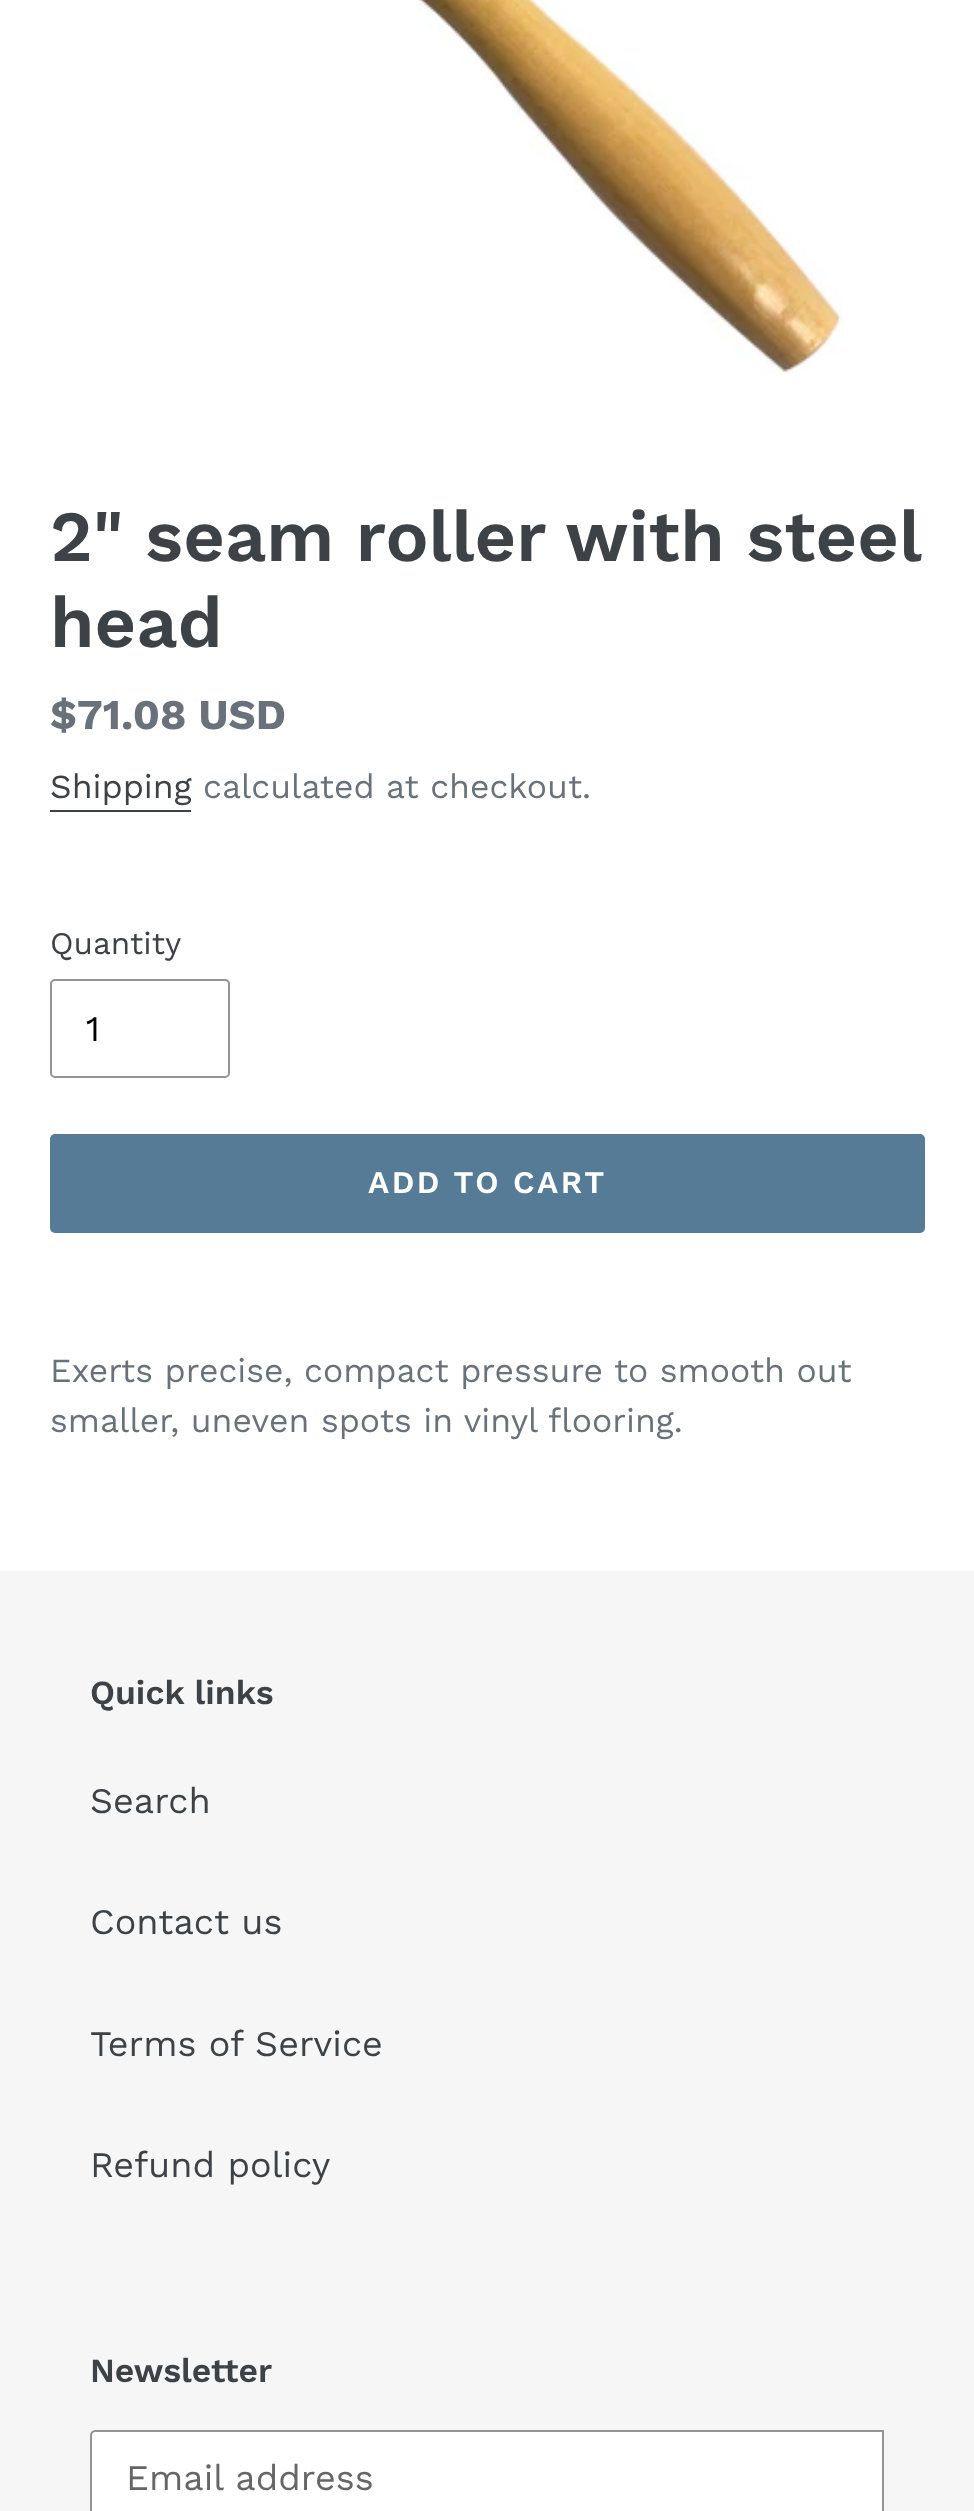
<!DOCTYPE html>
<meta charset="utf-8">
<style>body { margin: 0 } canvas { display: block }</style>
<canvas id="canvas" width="974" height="2511"></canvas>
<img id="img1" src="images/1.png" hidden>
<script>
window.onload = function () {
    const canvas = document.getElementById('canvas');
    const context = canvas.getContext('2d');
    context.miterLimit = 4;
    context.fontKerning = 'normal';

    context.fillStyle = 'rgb(255, 255, 255)';
    context.fillRect(0, 0, 974, 2511);
    context.drawImage(document.getElementById('img1'), 418, 0, 425, 374);
    context.fillStyle = 'rgb(61, 66, 70)';
    context.fillRect(50, 810, 141, 2);
    context.beginPath();
    context.roundRect(51, 980, 178, 97, 4);
    context.strokeStyle = 'rgb(148, 148, 148)';
    context.lineWidth = 2;
    context.stroke();
    context.fillStyle = 'rgb(85, 123, 151)';
    context.beginPath();
    context.roundRect(50, 1134, 875, 99, 5);
    context.fill();
    context.fillStyle = 'rgb(246, 246, 246)';
    context.fillRect(0, 1571, 974, 940);
    context.fillStyle = 'rgb(255, 255, 255)';
    context.beginPath();
    context.moveTo(95, 2431);
    context.lineTo(883, 2431);
    context.lineTo(883, 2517);
    context.lineTo(95, 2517);
    context.bezierCurveTo(93, 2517, 91, 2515, 91, 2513);
    context.lineTo(91, 2435);
    context.bezierCurveTo(91, 2433, 93, 2431, 95, 2431);
    context.closePath();
    context.fill();
    context.stroke();
    context.wordSpacing = '-0.5px';
    context.font = '600 72px Work Sans';
    context.fillStyle = 'rgb(61, 66, 70)';
    context.fillText('2" seam roller with steel', 50, 561);
    context.wordSpacing = '0px';
    context.fillText('head', 50, 647);
    context.font = 'bold 42.25px Work Sans';
    context.fillStyle = 'rgb(105, 114, 123)';
    context.fillText('$71.08 USD', 50, 729);
    context.font = '33.75px Work Sans';
    context.fillStyle = 'rgb(61, 66, 70)';
    context.fillText('Shipping', 50, 798);
    context.fillStyle = 'rgb(105, 114, 123)';
    context.fillText('calculated at checkout.', 203, 798);
    context.font = '31.5px Work Sans';
    context.fillStyle = 'rgb(61, 66, 70)';
    context.fillText('Quantity', 50, 954);
    context.font = '36px Work Sans';
    context.fillStyle = 'rgb(0, 0, 0)';
    context.fillText('1', 86, 1041);
    context.letterSpacing = '2.5px';
    context.font = '600 31.5px Work Sans';
    context.fillStyle = 'rgb(255, 255, 255)';
    context.fillText('ADD TO CART', 368, 1193);
    context.letterSpacing = '0px';
    context.font = '33.75px Work Sans';
    context.fillStyle = 'rgb(105, 114, 123)';
    context.fillText('Exerts precise, compact pressure to smooth out', 50, 1382);
    context.fillText('smaller, uneven spots in vinyl flooring.', 50, 1432);
    context.font = '600 33.75px Work Sans';
    context.fillStyle = 'rgb(61, 66, 70)';
    context.fillText('Quick links', 90, 1704);
    context.font = '36px Work Sans';
    context.fillText('Search', 90, 1813);
    context.fillText('Contact us', 90, 1934);
    context.fillText('Terms of Service', 90, 2056);
    context.fillText('Refund policy', 90, 2177);
    context.font = '600 33.75px Work Sans';
    context.fillText('Newsletter', 90, 2382);
    context.font = '36px Work Sans';
    context.fillStyle = 'rgb(102, 102, 102)';
    context.fillText('Email address', 126, 2490);
};
</script>
